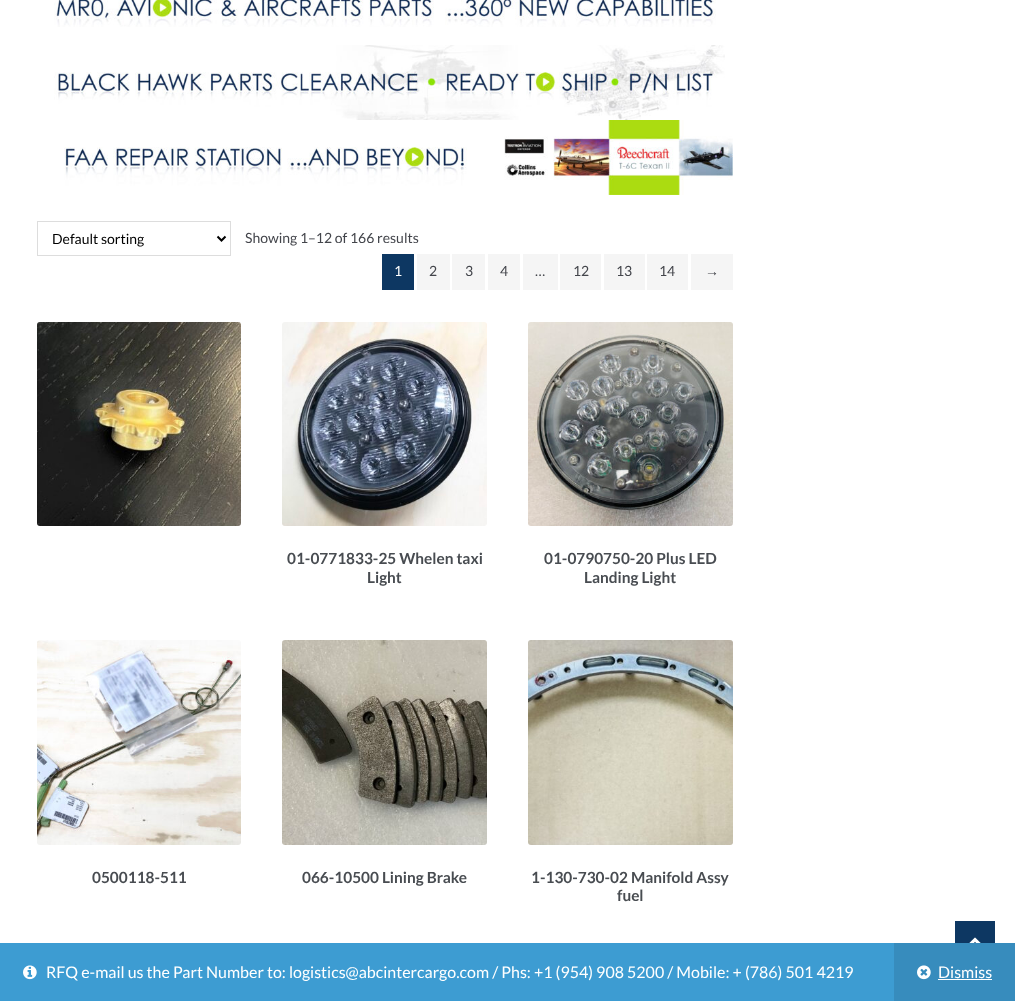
<!DOCTYPE html>
<meta charset="utf-8">
<style>body { margin: 0 } canvas { display: block }</style>
<canvas id="canvas" width="1015" height="1001"></canvas>
<img id="img1" src="images/1.png" hidden>
<img id="img2" src="images/2.png" hidden>
<img id="img3" src="images/3.png" hidden>
<img id="img4" src="images/4.png" hidden>
<img id="img5" src="images/5.png" hidden>
<img id="img6" src="images/6.png" hidden>
<img id="img7" src="images/7.png" hidden>
<img id="img8" src="images/8.png" hidden>
<img id="img9" src="images/9.png" hidden>
<img id="img10" src="images/10.png" hidden>
<img id="img11" src="images/11.png" hidden>
<img id="img12" src="images/12.png" hidden>
<script>
window.onload = function () {
    const canvas = document.getElementById('canvas');
    const context = canvas.getContext('2d');
    context.miterLimit = 4;
    context.fontKerning = 'normal';

    context.fillStyle = 'rgb(255, 255, 255)';
    context.fillRect(0, 0, 1015, 1001);
    context.drawImage(document.getElementById('img1'), 54, 0, 662, 27);
    context.drawImage(document.getElementById('img2'), 54, 45, 671, 75);
    context.drawImage(document.getElementById('img3'), 64, 120, 669, 75);
    context.strokeStyle = 'rgb(221, 221, 221)';
    context.strokeRect(37.5, 221.5, 193, 34);
    context.beginPath();
    context.moveTo(217.5, 236.5);
    context.lineTo(221.5, 240.5);
    context.lineTo(225.5, 236.5);
    context.strokeStyle = 'rgb(0, 0, 0)';
    context.lineWidth = 2;
    context.stroke();
    context.fillStyle = 'rgb(13, 55, 98)';
    context.fillRect(382, 254, 32, 36);
    context.fillStyle = 'rgb(245, 245, 245)';
    context.fillRect(417, 254, 33, 36);
    context.fillRect(452, 254, 33, 36);
    context.fillRect(488, 254, 32, 36);
    context.fillRect(523, 254, 35, 36);
    context.fillRect(560, 254, 41, 36);
    context.fillRect(604, 254, 41, 36);
    context.fillRect(647, 254, 41, 36);
    context.fillRect(691, 254, 42, 36);
    context.drawImage(document.getElementById('img4'), 37, 322, 204, 204);
    context.drawImage(document.getElementById('img5'), 282, 322, 205, 204);
    context.drawImage(document.getElementById('img6'), 528, 322, 205, 204);
    context.drawImage(document.getElementById('img7'), 37, 640, 204, 205);
    context.drawImage(document.getElementById('img8'), 282, 640, 205, 205);
    context.drawImage(document.getElementById('img9'), 528, 640, 205, 205);
    context.fillStyle = 'rgb(13, 55, 98)';
    context.fillRect(955, 921, 40, 22);
    context.drawImage(document.getElementById('img10'), 969, 937, 12, 6);
    context.fillStyle = 'rgb(61, 156, 210)';
    context.fillRect(0, 943, 894, 58);
    context.drawImage(document.getElementById('img11'), 23, 965, 14, 15);
    context.fillStyle = 'rgb(55, 140, 189)';
    context.fillRect(894, 943, 121, 58);
    context.drawImage(document.getElementById('img12'), 917, 965, 14, 15);
    context.fillStyle = 'rgb(255, 255, 255)';
    context.fillRect(938, 979, 54, 1);
    context.font = '14px Lato';
    context.fillStyle = 'rgb(0, 0, 0)';
    context.fillText('Default sorting', 52, 244);
    context.fillStyle = 'rgb(67, 69, 75)';
    context.fillText('Showing 1–12 of 166 results', 245, 243);
    context.fillStyle = 'rgb(255, 255, 255)';
    context.fillText('1', 394, 276);
    context.fillStyle = 'rgb(67, 69, 75)';
    context.fillText('2', 429, 276);
    context.fillText('3', 465, 276);
    context.fillText('4', 500, 276);
    context.fillText('…', 535, 276);
    context.fillText('12', 573, 276);
    context.fillText('13', 616, 276);
    context.fillText('14', 659, 276);
    context.font = '14px Liberation Sans';
    context.fillText('→', 705, 276);
    context.font = 'bold 15.4px Lato';
    context.fillStyle = 'rgb(72, 76, 81)';
    context.fillText('01-0771833-25 Whelen taxi', 287, 564);
    context.fillText('Light', 367, 583);
    context.fillText('01-0790750-20 Plus LED', 544, 564);
    context.fillText('Landing Light', 584, 583);
    context.fillText('0500118-511', 92, 883);
    context.fillText('066-10500 Lining Brake', 302, 883);
    context.fillText('1-130-730-02 Manifold Assy', 531, 883);
    context.fillText('fuel', 617, 901);
    context.font = '16px Lato';
    context.fillStyle = 'rgb(255, 255, 255)';
    context.fillText('RFQ e-mail us the Part Number to: logistics@abcintercargo.com / Phs: +1 (954) 908 5200 / Mobile: + (786) 501 4219', 46, 978);
    context.fillText('Dismiss', 938, 978);
};
</script>
